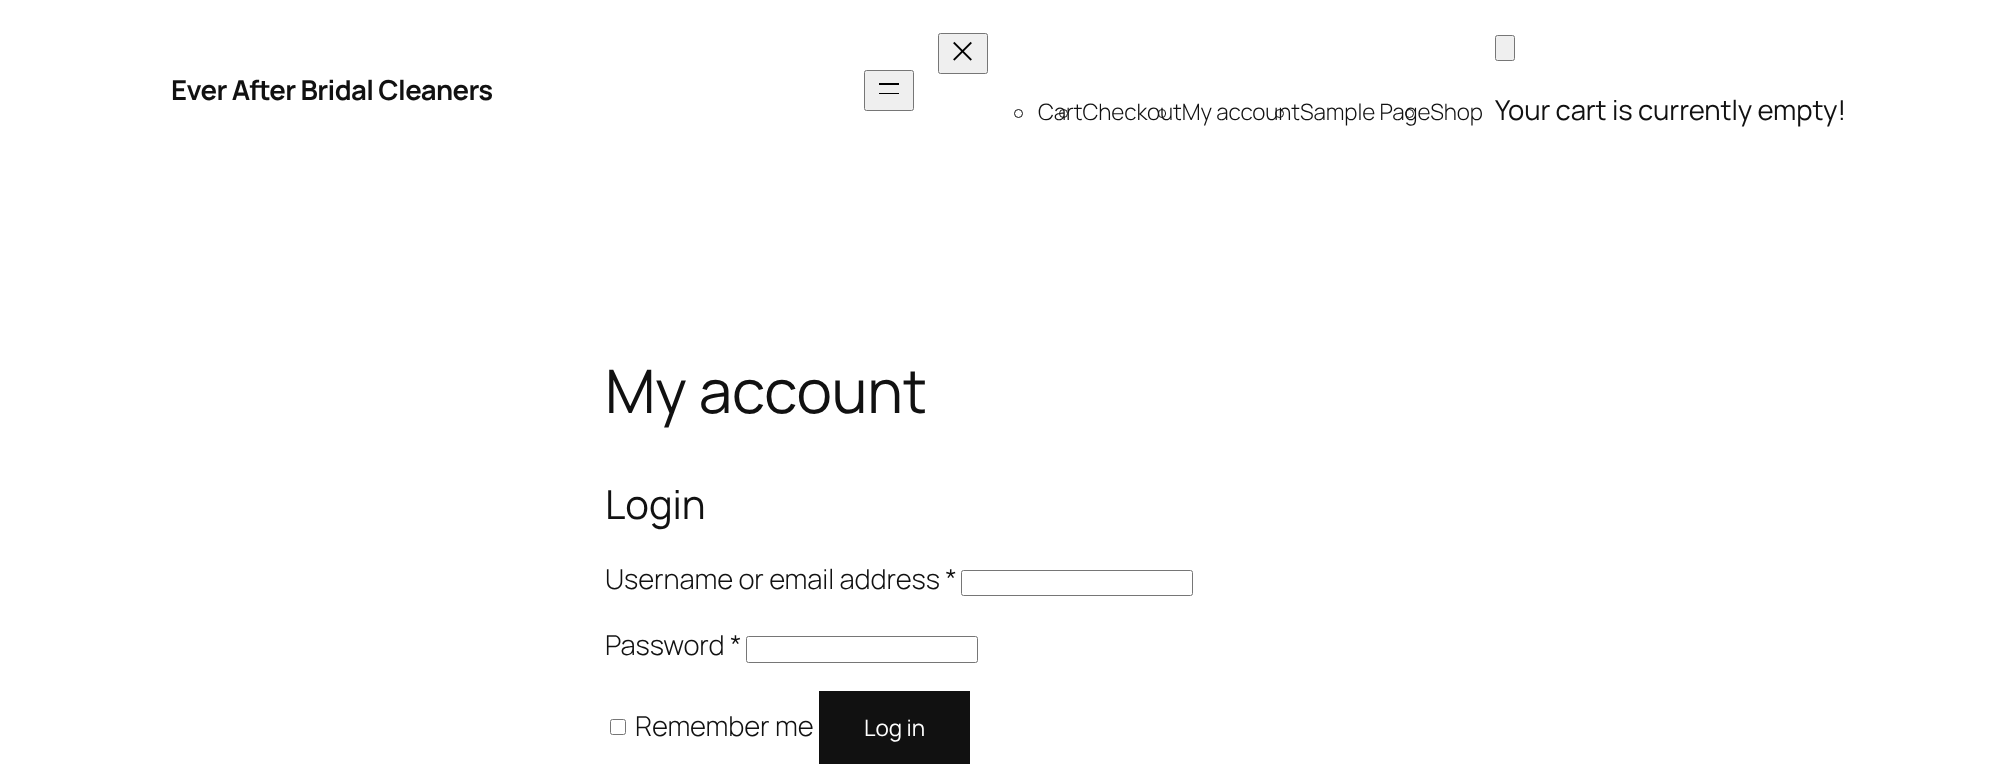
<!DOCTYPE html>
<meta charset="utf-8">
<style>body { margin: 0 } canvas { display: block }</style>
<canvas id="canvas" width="2016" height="772"></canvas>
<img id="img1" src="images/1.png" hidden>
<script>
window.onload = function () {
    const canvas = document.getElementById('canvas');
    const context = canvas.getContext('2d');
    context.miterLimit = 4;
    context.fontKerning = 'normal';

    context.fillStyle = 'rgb(255, 255, 255)';
    context.fillRect(0, 0, 2016, 772);
    context.fillStyle = 'rgb(239, 239, 239)';
    context.beginPath();
    context.roundRect(864.5, 70.5, 49, 40, 2);
    context.fill();
    context.strokeStyle = 'rgb(118, 118, 118)';
    context.stroke();
    context.fillStyle = 'rgb(0, 0, 0)';
    context.fillRect(879, 83, 20, 2);
    context.fillRect(879, 93, 20, 1);
    context.fillStyle = 'rgb(239, 239, 239)';
    context.beginPath();
    context.roundRect(938.5, 33.5, 49, 40, 2);
    context.fill();
    context.stroke();
    context.drawImage(document.getElementById('img1'), 953, 41, 19, 20);
    context.beginPath();
    context.arc(1018.5, 113.5, 4, 0, 2 * Math.PI);
    context.strokeStyle = 'rgb(17, 17, 17)';
    context.stroke();
    context.beginPath();
    context.arc(1063.5, 113.5, 4, 0, 2 * Math.PI);
    context.stroke();
    context.beginPath();
    context.roundRect(1158.5, 109.5, 7, 8, 3.5);
    context.stroke();
    context.beginPath();
    context.arc(1279.5, 113.5, 4, 0, 2 * Math.PI);
    context.stroke();
    context.beginPath();
    context.arc(1409.5, 113.5, 4, 0, 2 * Math.PI);
    context.stroke();
    context.beginPath();
    context.roundRect(1495.5, 35.5, 19, 25, 2);
    context.fill();
    context.strokeStyle = 'rgb(118, 118, 118)';
    context.stroke();
    context.beginPath();
    context.roundRect(961.5, 570.5, 231, 25, 2);
    context.stroke();
    context.beginPath();
    context.roundRect(746.5, 636.5, 231, 26, 2);
    context.stroke();
    context.beginPath();
    context.roundRect(610.5, 719.5, 15, 15, 2);
    context.stroke();
    context.fillStyle = 'rgb(17, 17, 17)';
    context.fillRect(819, 691, 151, 73);
    context.letterSpacing = '-0.6px';
    context.font = 'bold 27.5px Manrope';
    context.fillText('Ever After Bridal Cleaners', 171, 100);
    context.letterSpacing = '-0.1px';
    context.font = '300 22.5px Manrope';
    context.fillText('CartCheckoutMy accountSample PageShop', 1038, 120);
    context.font = '27.5px Manrope';
    context.fillText('Your cart is currently empty!', 1495, 120);
    context.font = '60px Manrope';
    context.fillText('My account', 605, 413);
    context.font = '40px Manrope';
    context.fillText('Login', 605, 519);
    context.font = '300 27.5px Manrope';
    context.fillText('Username or email address *', 605, 589);
    context.fillText('Password *', 605, 655);
    context.fillText('Remember me', 635, 736);
    context.letterSpacing = '0px';
    context.font = '22.5px Manrope';
    context.fillStyle = 'rgb(255, 255, 255)';
    context.fillText('Log in', 864, 736);
};
</script>
